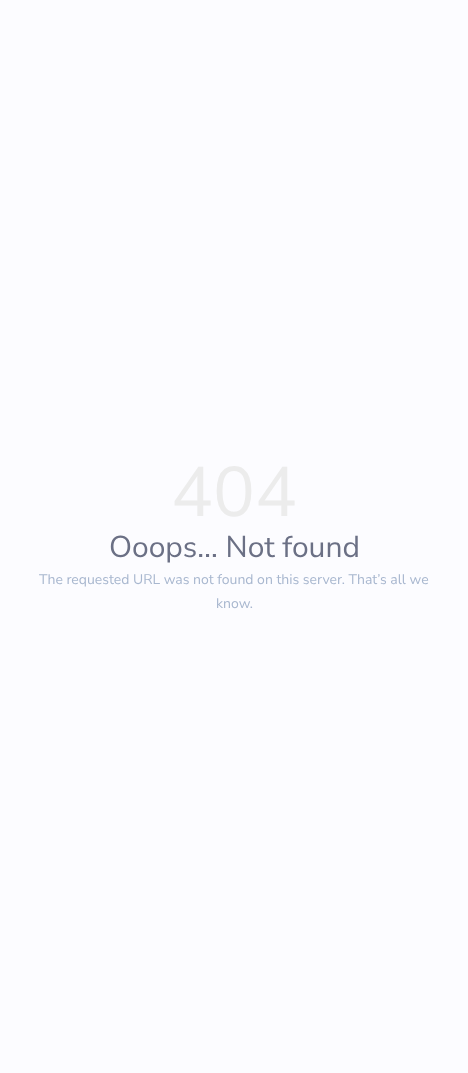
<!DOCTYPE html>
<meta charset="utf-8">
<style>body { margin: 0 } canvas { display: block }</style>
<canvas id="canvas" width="468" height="1073"></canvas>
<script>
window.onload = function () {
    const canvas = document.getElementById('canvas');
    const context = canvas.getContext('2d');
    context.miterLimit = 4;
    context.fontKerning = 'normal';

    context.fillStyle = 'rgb(252, 252, 255)';
    context.fillRect(0, 0, 468, 1073);
    context.font = '70px Nunito Sans';
    context.fillStyle = 'rgb(236, 236, 236)';
    context.fillText('404', 171, 516);
    context.font = '30px Nunito Sans';
    context.fillStyle = 'rgb(107, 112, 133)';
    context.fillText('Ooops… Not found', 109, 557);
    context.font = '14px Nunito Sans';
    context.fillStyle = 'rgb(168, 183, 207)';
    context.fillText('The requested URL was not found on this server. That’s all we', 39, 584);
    context.fillText('know.', 216, 608);
};
</script>
